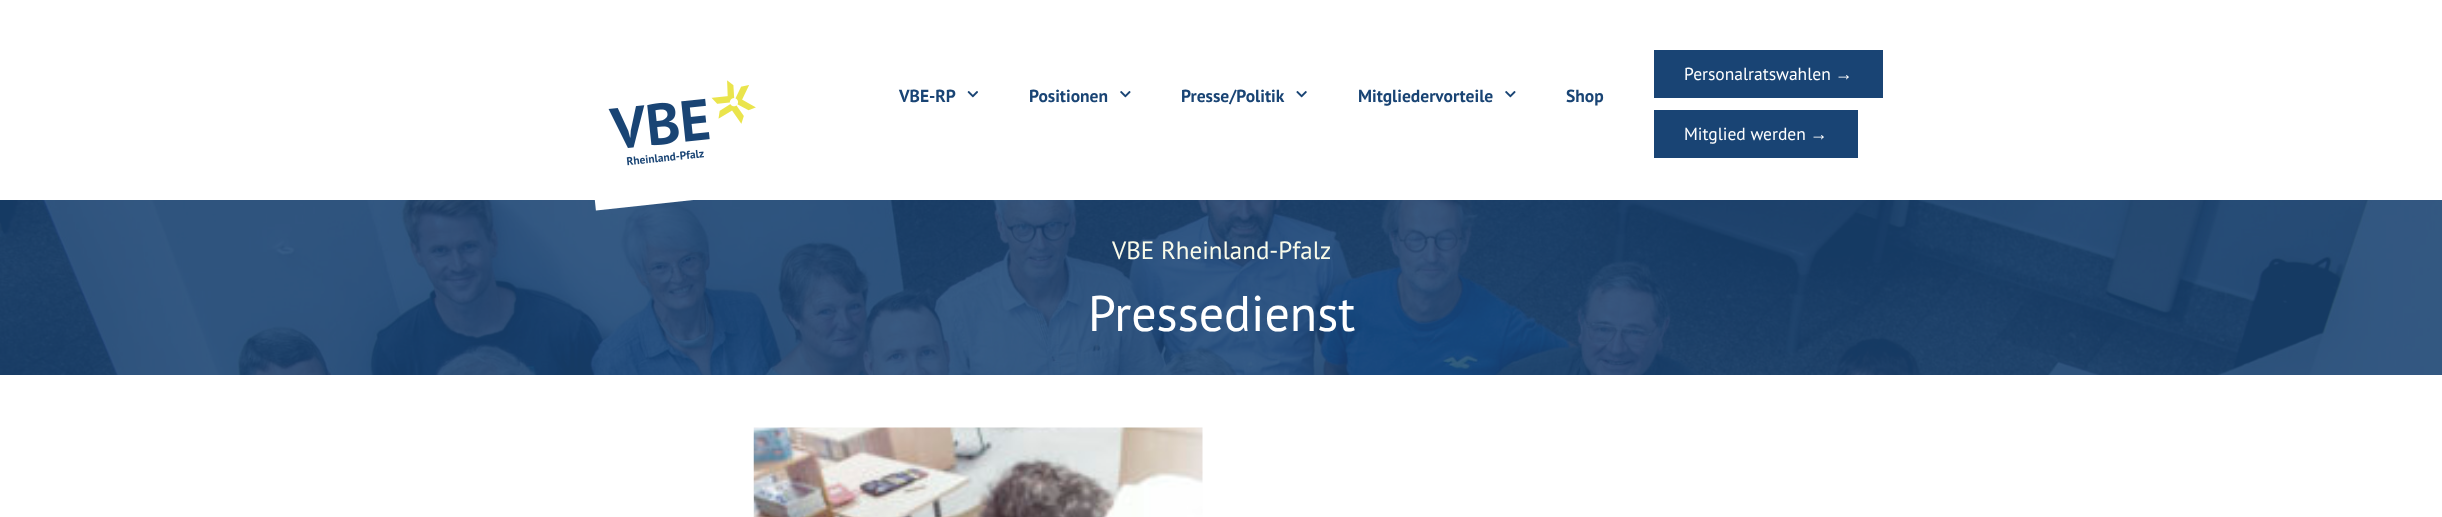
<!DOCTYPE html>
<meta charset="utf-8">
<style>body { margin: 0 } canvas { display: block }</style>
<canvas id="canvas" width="2442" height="517"></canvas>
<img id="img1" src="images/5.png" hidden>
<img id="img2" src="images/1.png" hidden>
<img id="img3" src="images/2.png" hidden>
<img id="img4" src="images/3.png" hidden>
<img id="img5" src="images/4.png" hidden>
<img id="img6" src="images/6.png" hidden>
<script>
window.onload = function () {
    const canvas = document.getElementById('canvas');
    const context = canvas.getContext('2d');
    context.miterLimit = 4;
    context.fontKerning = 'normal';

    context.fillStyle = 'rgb(255, 255, 255)';
    context.fillRect(0, 0, 2442, 517);
    context.drawImage(document.getElementById('img1'), 0, 200, 2442, 175);
    context.drawImage(document.getElementById('img2'), 594, 80, 162, 131);
    context.drawImage(document.getElementById('img3'), 967, 91, 11, 7);
    context.drawImage(document.getElementById('img4'), 1120, 91, 11, 7);
    context.drawImage(document.getElementById('img5'), 1296, 91, 11, 7);
    context.drawImage(document.getElementById('img4'), 1505, 91, 11, 7);
    context.fillStyle = 'rgb(25, 68, 116)';
    context.fillRect(1654, 50, 229, 48);
    context.fillRect(1654, 110, 204, 48);
    context.drawImage(document.getElementById('img6'), 753, 427, 450, 90);
    context.font = 'bold 17.5px PT Sans';
    context.fillText('VBE-RP', 899, 102);
    context.fillText('Positionen', 1029, 102);
    context.fillText('Presse/Politik', 1181, 102);
    context.fillText('Mitgliedervorteile', 1358, 102);
    context.fillText('Shop', 1566, 102);
    context.font = '17.5px PT Sans';
    context.fillStyle = 'rgb(255, 255, 255)';
    context.fillText('Personalratswahlen', 1684, 80);
    context.font = '17.5px Liberation Sans';
    context.fillText('→', 1835, 80);
    context.font = '17.5px PT Sans';
    context.fillText('Mitglied werden', 1684, 140);
    context.font = '17.5px Liberation Sans';
    context.fillText('→', 1810, 140);
    context.font = '25px PT Sans';
    context.fillStyle = 'rgb(249, 251, 234)';
    context.fillText('VBE Rheinland-Pfalz', 1112, 259);
    context.font = '50px PT Sans';
    context.fillStyle = 'rgb(255, 255, 255)';
    context.fillText('Pressedienst', 1088, 331);
};
</script>
